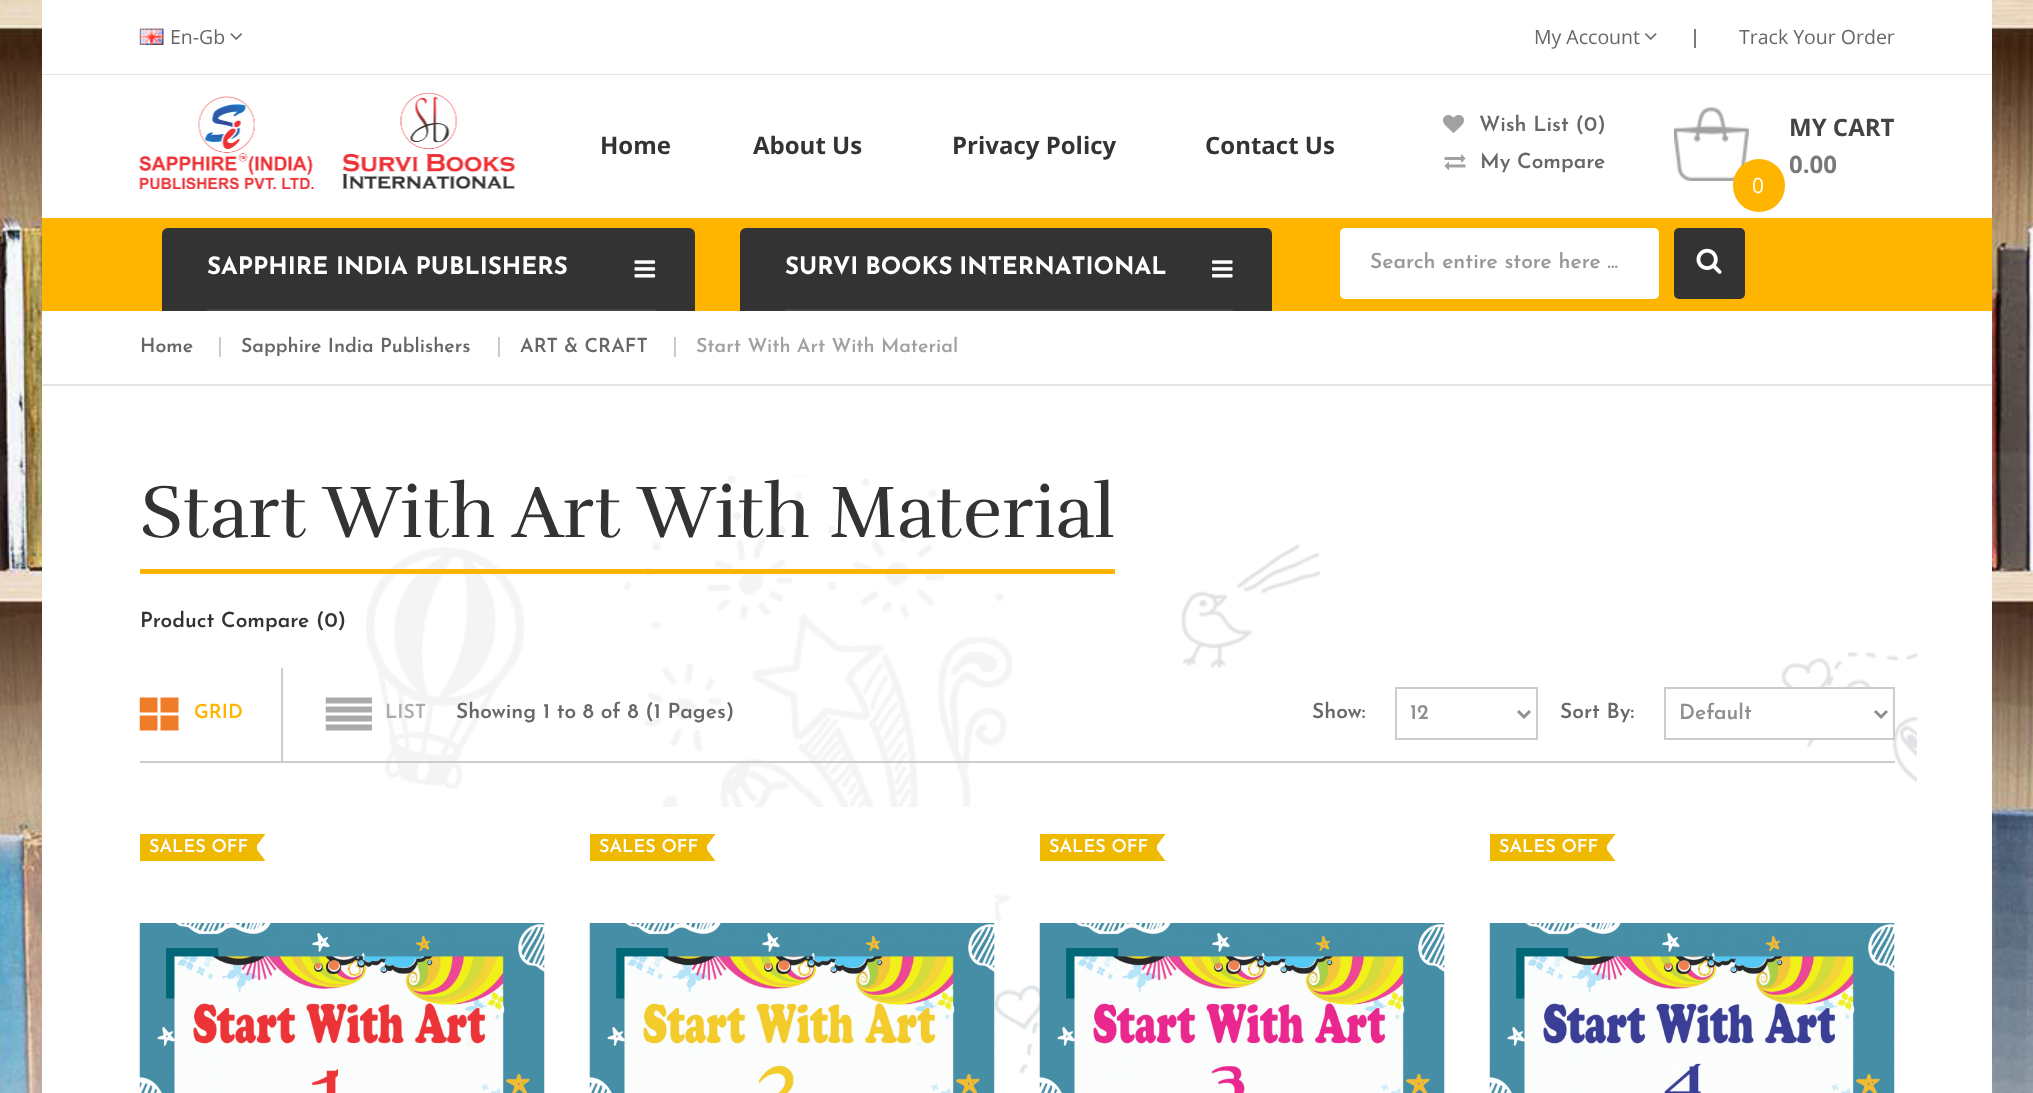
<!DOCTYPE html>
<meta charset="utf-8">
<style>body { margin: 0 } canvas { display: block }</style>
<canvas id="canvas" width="2033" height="1093"></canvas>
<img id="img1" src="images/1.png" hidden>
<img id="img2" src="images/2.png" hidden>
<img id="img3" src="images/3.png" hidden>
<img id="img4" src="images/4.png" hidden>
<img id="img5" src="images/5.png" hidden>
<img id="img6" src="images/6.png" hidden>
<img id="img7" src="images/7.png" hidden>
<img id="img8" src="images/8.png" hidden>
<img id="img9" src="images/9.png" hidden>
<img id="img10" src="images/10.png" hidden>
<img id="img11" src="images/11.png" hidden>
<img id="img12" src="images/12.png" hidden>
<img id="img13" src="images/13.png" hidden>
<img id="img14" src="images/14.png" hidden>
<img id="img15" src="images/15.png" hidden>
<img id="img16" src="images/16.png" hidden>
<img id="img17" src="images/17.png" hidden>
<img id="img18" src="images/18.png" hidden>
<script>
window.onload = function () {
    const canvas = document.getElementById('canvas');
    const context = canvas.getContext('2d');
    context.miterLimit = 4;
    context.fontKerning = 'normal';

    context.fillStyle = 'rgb(255, 255, 255)';
    context.fillRect(0, 0, 2033, 1093);
    context.drawImage(document.getElementById('img1'), 0, 0, 2033, 1093);
    context.fillRect(42, 0, 1950, 1093);
    context.fillStyle = 'rgb(229, 229, 229)';
    context.fillRect(42, 74, 1950, 1);
    context.drawImage(document.getElementById('img2'), 139, 28, 25, 17);
    context.drawImage(document.getElementById('img3'), 230, 33, 12, 7);
    context.drawImage(document.getElementById('img4'), 1645, 33, 12, 7);
    context.fillStyle = 'rgb(124, 124, 124)';
    context.fillRect(1694, 29, 2, 19);
    context.drawImage(document.getElementById('img5'), 139, 93, 376, 96);
    context.drawImage(document.getElementById('img6'), 1443, 115, 21, 18);
    context.drawImage(document.getElementById('img7'), 1444, 154, 22, 16);
    context.drawImage(document.getElementById('img8'), 1674, 107, 75, 74);
    context.fillStyle = 'rgb(255, 180, 0)';
    context.beginPath();
    context.roundRect(1733, 159, 52, 53, 26);
    context.fill();
    context.fillRect(42, 218, 1950, 93);
    context.fillStyle = 'rgb(51, 51, 51)';
    context.beginPath();
    context.roundRect(162, 228, 533, 83, [6, 6, 0, 0]);
    context.fill();
    context.fillStyle = 'rgb(71, 71, 71)';
    context.fillRect(207, 309, 449, 2);
    context.drawImage(document.getElementById('img9'), 634, 260, 22, 18);
    context.fillStyle = 'rgb(51, 51, 51)';
    context.beginPath();
    context.roundRect(740, 228, 532, 83, [6, 6, 0, 0]);
    context.fill();
    context.fillStyle = 'rgb(71, 71, 71)';
    context.fillRect(785, 309, 448, 2);
    context.drawImage(document.getElementById('img10'), 1212, 260, 21, 18);
    context.fillStyle = 'rgb(255, 255, 255)';
    context.beginPath();
    context.roundRect(1340, 228, 319, 71, 5);
    context.fill();
    context.fillStyle = 'rgb(51, 51, 51)';
    context.beginPath();
    context.roundRect(1674, 228, 71, 71, 5);
    context.fill();
    context.drawImage(document.getElementById('img11'), 1696, 248, 26, 26);
    context.fillStyle = 'rgb(229, 229, 229)';
    context.fillRect(42, 384, 1950, 2);
    context.drawImage(document.getElementById('img12'), 366, 475, 1551, 599);
    context.fillStyle = 'rgb(255, 180, 0)';
    context.fillRect(140, 569, 975, 5);
    context.fillStyle = 'rgb(204, 204, 204)';
    context.fillRect(140, 761, 1755, 2);
    context.drawImage(document.getElementById('img13'), 139, 697, 40, 34);
    context.fillRect(281, 668, 2, 93);
    context.drawImage(document.getElementById('img14'), 325, 697, 47, 34);
    context.strokeStyle = 'rgb(204, 204, 204)';
    context.lineWidth = 2;
    context.strokeRect(1396, 688, 141, 51);
    context.beginPath();
    context.moveTo(1518, 711);
    context.lineTo(1524, 717);
    context.lineTo(1530, 711);
    context.strokeStyle = 'rgb(144, 143, 143)';
    context.lineWidth = 3;
    context.stroke();
    context.fillStyle = 'rgb(255, 255, 255)';
    context.fillRect(1789, 689, 104, 49);
    context.strokeStyle = 'rgb(204, 204, 204)';
    context.lineWidth = 2;
    context.strokeRect(1665, 688, 229, 51);
    context.beginPath();
    context.moveTo(1875, 711);
    context.lineTo(1881, 717);
    context.lineTo(1887, 711);
    context.strokeStyle = 'rgb(144, 143, 143)';
    context.lineWidth = 3;
    context.stroke();
    context.fillRect(366, 903, 98, 171);
    context.fillStyle = 'rgb(238, 185, 0)';
    context.fillRect(140, 834, 117, 27);
    context.beginPath();
    context.moveTo(256.5, 834);
    context.lineTo(265.5, 834);
    context.lineTo(261, 840);
    context.closePath();
    context.fill();
    context.beginPath();
    context.moveTo(256.5, 846);
    context.lineTo(256.5, 834);
    context.lineTo(261, 840);
    context.closePath();
    context.moveTo(265.5, 861);
    context.lineTo(256.5, 861);
    context.lineTo(261, 855);
    context.closePath();
    context.fill();
    context.beginPath();
    context.moveTo(256.5, 861);
    context.lineTo(256.5, 849);
    context.lineTo(261, 855);
    context.closePath();
    context.fill();
    context.drawImage(document.getElementById('img15'), 139, 923, 406, 170);
    context.fillStyle = 'rgb(255, 255, 255)';
    context.fillRect(665, 807, 330, 202);
    context.fillStyle = 'rgb(238, 185, 0)';
    context.fillRect(590, 834, 117, 27);
    context.beginPath();
    context.moveTo(706.5, 834);
    context.lineTo(715.5, 834);
    context.lineTo(711, 840);
    context.closePath();
    context.fill();
    context.beginPath();
    context.moveTo(706.5, 846);
    context.lineTo(706.5, 834);
    context.lineTo(711, 840);
    context.closePath();
    context.moveTo(715.5, 861);
    context.lineTo(706.5, 861);
    context.lineTo(711, 855);
    context.closePath();
    context.fill();
    context.beginPath();
    context.moveTo(706.5, 861);
    context.lineTo(706.5, 849);
    context.lineTo(711, 855);
    context.closePath();
    context.fill();
    context.drawImage(document.getElementById('img16'), 589, 923, 406, 170);
    context.fillStyle = 'rgb(255, 255, 255)';
    context.fillRect(1040, 872, 235, 202);
    context.fillStyle = 'rgb(238, 185, 0)';
    context.fillRect(1040, 834, 117, 27);
    context.beginPath();
    context.moveTo(1156.5, 834);
    context.lineTo(1165.5, 834);
    context.lineTo(1161, 840);
    context.closePath();
    context.fill();
    context.beginPath();
    context.moveTo(1156.5, 846);
    context.lineTo(1156.5, 834);
    context.lineTo(1161, 840);
    context.closePath();
    context.moveTo(1165.5, 861);
    context.lineTo(1156.5, 861);
    context.lineTo(1161, 855);
    context.closePath();
    context.fill();
    context.beginPath();
    context.moveTo(1156.5, 861);
    context.lineTo(1156.5, 849);
    context.lineTo(1161, 855);
    context.closePath();
    context.fill();
    context.drawImage(document.getElementById('img17'), 1039, 923, 406, 170);
    context.fillStyle = 'rgb(255, 255, 255)';
    context.fillRect(1558, 970, 327, 104);
    context.fillStyle = 'rgb(238, 185, 0)';
    context.fillRect(1490, 834, 117, 27);
    context.beginPath();
    context.moveTo(1606.5, 834);
    context.lineTo(1615.5, 834);
    context.lineTo(1611, 840);
    context.closePath();
    context.fill();
    context.beginPath();
    context.moveTo(1606.5, 846);
    context.lineTo(1606.5, 834);
    context.lineTo(1611, 840);
    context.closePath();
    context.moveTo(1615.5, 861);
    context.lineTo(1606.5, 861);
    context.lineTo(1611, 855);
    context.closePath();
    context.fill();
    context.beginPath();
    context.moveTo(1606.5, 861);
    context.lineTo(1606.5, 849);
    context.lineTo(1611, 855);
    context.closePath();
    context.fill();
    context.drawImage(document.getElementById('img18'), 1489, 923, 406, 170);
    context.font = '19.5px Open Sans';
    context.fillStyle = 'rgb(103, 103, 103)';
    context.fillText('En-Gb', 170, 44);
    context.fillText('My Account', 1534, 44);
    context.fillText('Track Your Order', 1739, 44);
    context.font = 'bold 24px Open Sans';
    context.fillStyle = 'rgb(51, 51, 51)';
    context.fillText('Home', 600, 154);
    context.fillText('About Us', 753, 154);
    context.fillText('Privacy Policy', 952, 154);
    context.fillText('Contact Us', 1205, 154);
    context.font = '600 21px Josefin Sans';
    context.fillStyle = 'rgb(103, 103, 103)';
    context.fillText('Wish List (0)', 1479, 131);
    context.fillText('My Compare', 1480, 168);
    context.font = 'bold 24px Open Sans';
    context.fillStyle = 'rgb(68, 68, 68)';
    context.fillText('MY CART', 1789, 136);
    context.fillStyle = 'rgb(120, 120, 120)';
    context.fillText('0.00', 1789, 173);
    context.font = '21px Open Sans';
    context.fillStyle = 'rgb(255, 255, 255)';
    context.fillText('0', 1752, 193);
    context.font = 'bold 24px Josefin Sans';
    context.fillText('SAPPHIRE INDIA PUBLISHERS', 207, 274);
    context.wordSpacing = '-1px';
    context.fillText('SURVI BOOKS INTERNATIONAL', 785, 274);
    context.save();
    context.beginPath();
    context.rect(1370, 252, 259, 23);
    context.clip();
    context.wordSpacing = '0px';
    context.font = '600 21px Josefin Sans';
    context.fillStyle = 'rgb(153, 153, 153)';
    context.fillText('Search entire store here ...', 1370, 268);
    context.restore();
    context.wordSpacing = '0px';
    context.font = '600 19.5px Josefin Sans';
    context.fillStyle = 'rgb(103, 103, 103)';
    context.fillText('Home', 140, 352);
    context.font = '600 21px Josefin Sans';
    context.fillStyle = 'rgb(204, 204, 204)';
    context.fillText('|', 217, 352);
    context.font = '600 19.5px Josefin Sans';
    context.fillStyle = 'rgb(103, 103, 103)';
    context.fillText('Sapphire India Publishers', 241, 352);
    context.font = '600 21px Josefin Sans';
    context.fillStyle = 'rgb(204, 204, 204)';
    context.fillText('|', 496, 352);
    context.font = '600 19.5px Josefin Sans';
    context.fillStyle = 'rgb(103, 103, 103)';
    context.fillText('ART & CRAFT', 520, 352);
    context.font = '600 21px Josefin Sans';
    context.fillStyle = 'rgb(204, 204, 204)';
    context.fillText('|', 672, 352);
    context.font = '600 19.5px Josefin Sans';
    context.fillStyle = 'rgb(161, 161, 161)';
    context.fillText('Start With Art With Material', 696, 352);
    context.font = '75px Rufina';
    context.fillStyle = 'rgb(51, 51, 51)';
    context.fillText('Start With Art With Material', 140, 537);
    context.font = '600 21px Josefin Sans';
    context.fillText('Product Compare (0)', 140, 627);
    context.font = '600 19.5px Josefin Sans';
    context.fillStyle = 'rgb(255, 180, 0)';
    context.fillText('GRID', 194, 718);
    context.fillStyle = 'rgb(170, 170, 170)';
    context.fillText('LIST', 385, 718);
    context.font = '600 21px Josefin Sans';
    context.fillStyle = 'rgb(103, 103, 103)';
    context.fillText('Showing 1 to 8 of 8 (1 Pages)', 456, 718);
    context.fillText('Show:', 1312, 718);
    context.fillStyle = 'rgb(144, 143, 143)';
    context.fillText('12', 1410, 719);
    context.fillStyle = 'rgb(103, 103, 103)';
    context.fillText('Sort By:', 1560, 718);
    context.fillStyle = 'rgb(144, 143, 143)';
    context.fillText('Default', 1679, 719);
    context.font = '600 18px Josefin Sans';
    context.fillStyle = 'rgb(255, 255, 255)';
    context.fillText('SALES OFF', 149, 852);
    context.fillText('SALES OFF', 599, 852);
    context.fillText('SALES OFF', 1049, 852);
    context.fillText('SALES OFF', 1499, 852);
};
</script>
